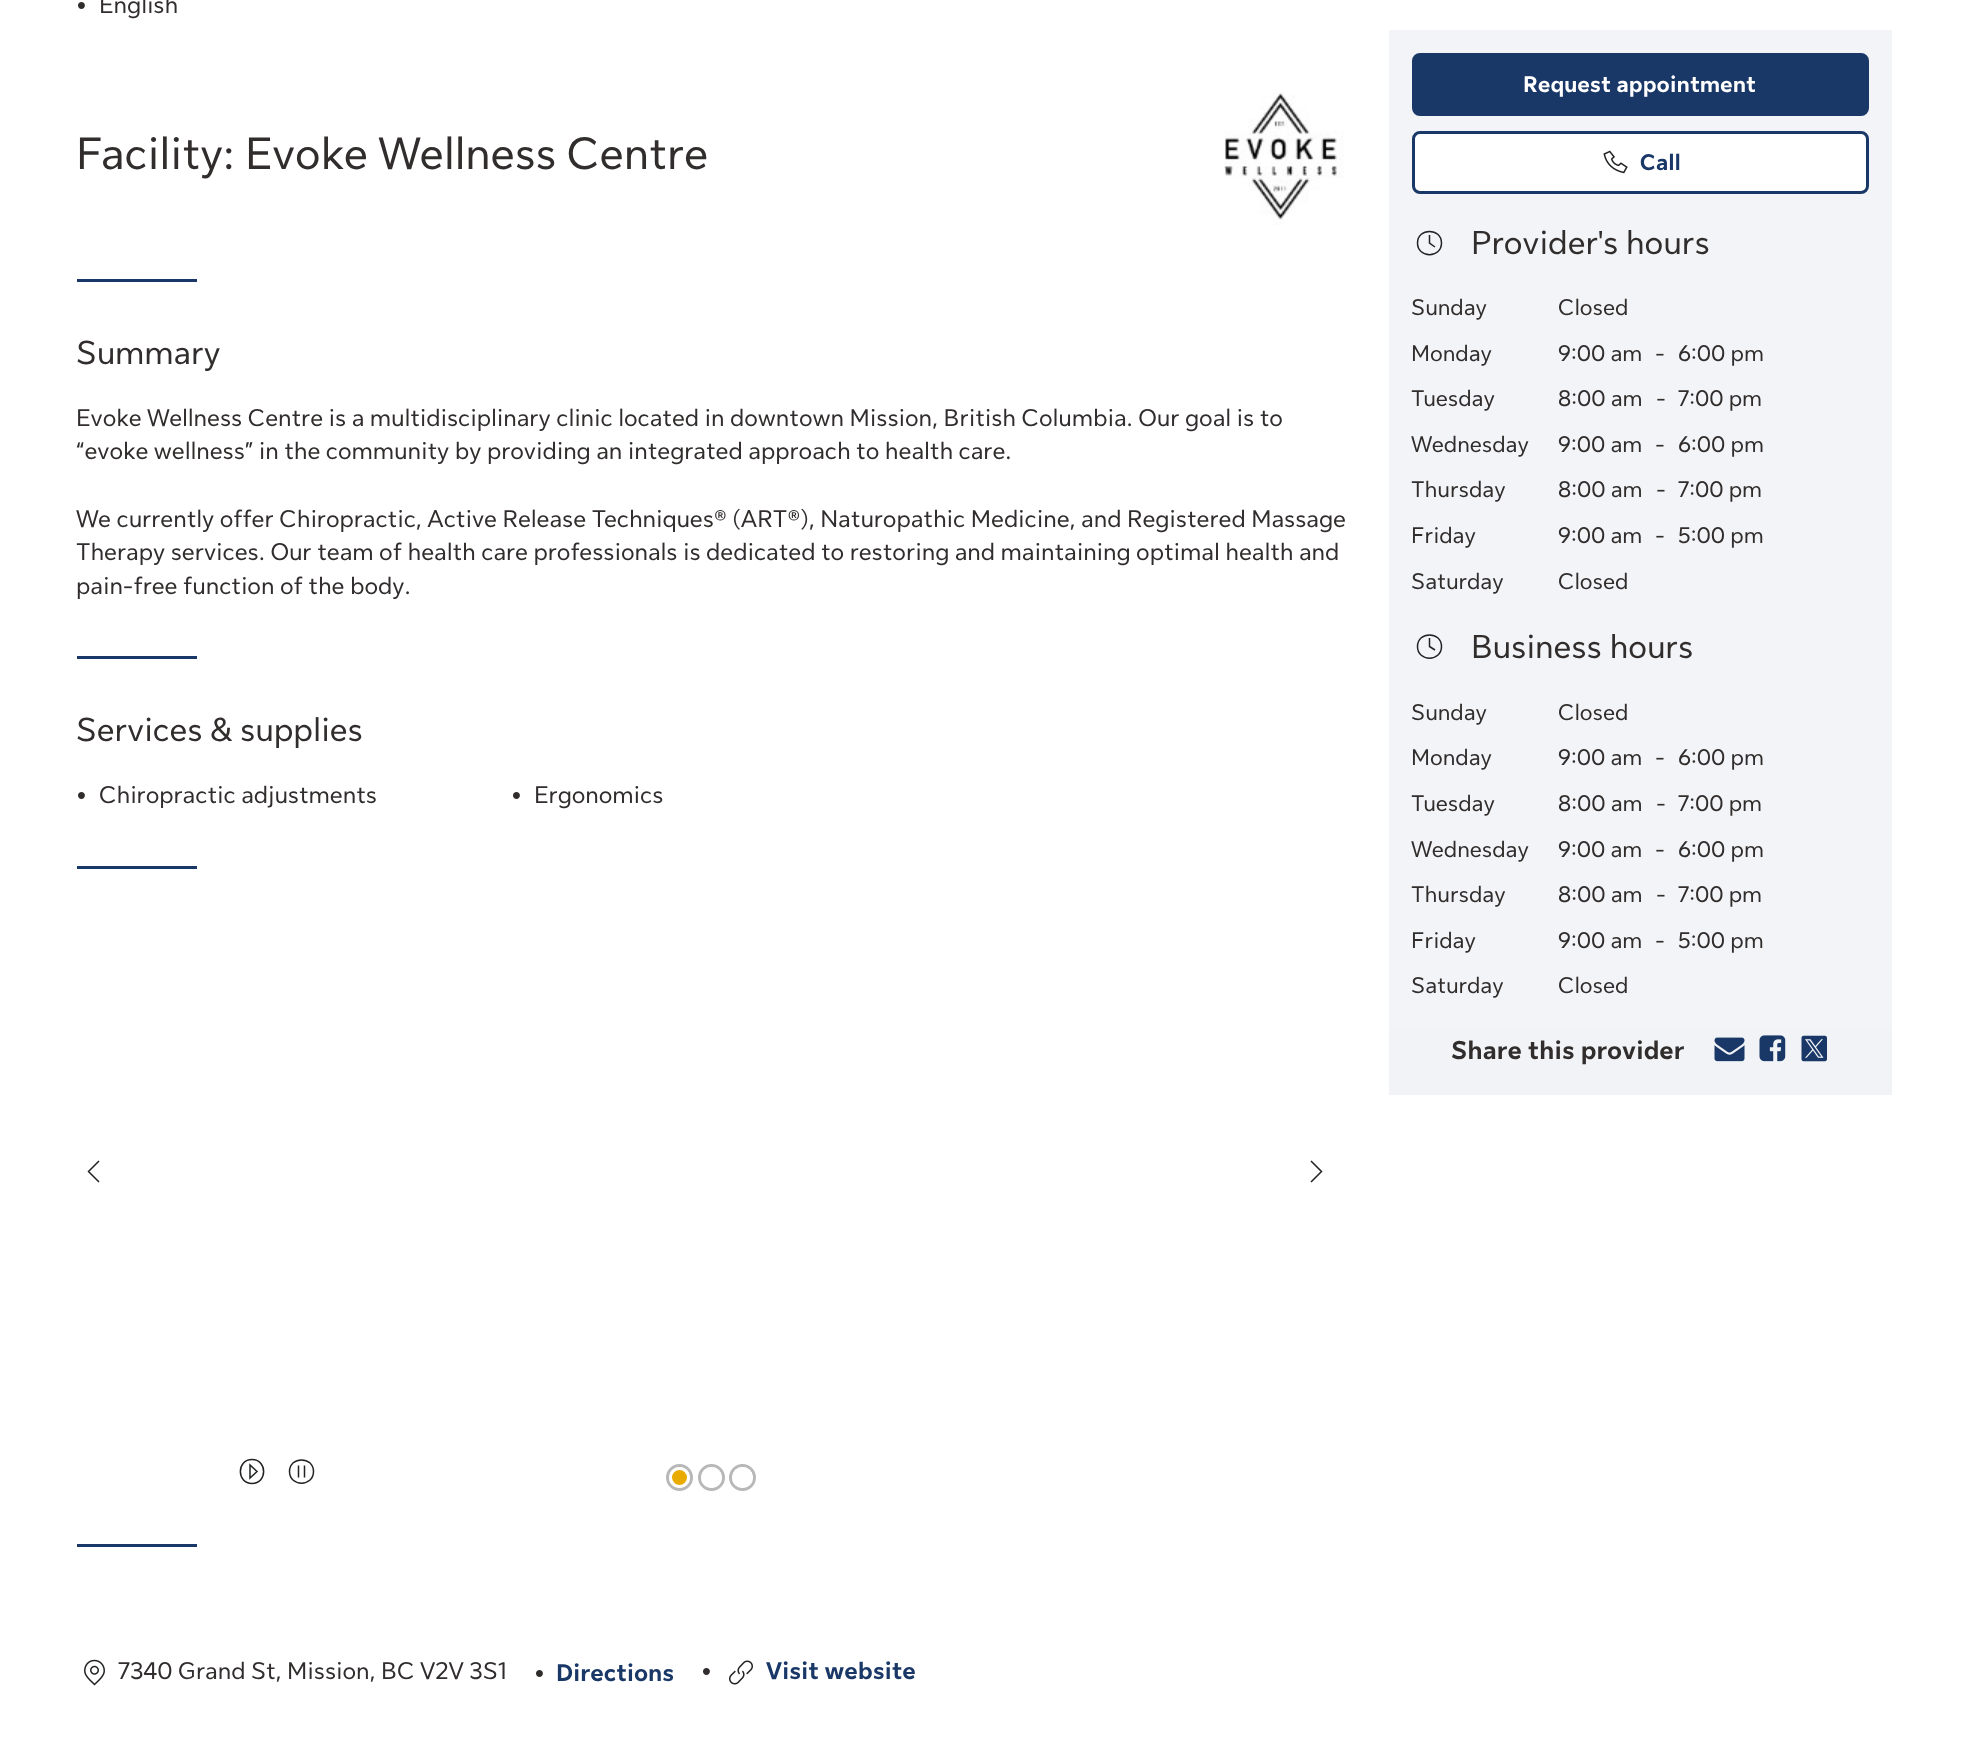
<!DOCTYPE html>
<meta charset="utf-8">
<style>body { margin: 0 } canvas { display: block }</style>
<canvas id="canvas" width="1966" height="1757"></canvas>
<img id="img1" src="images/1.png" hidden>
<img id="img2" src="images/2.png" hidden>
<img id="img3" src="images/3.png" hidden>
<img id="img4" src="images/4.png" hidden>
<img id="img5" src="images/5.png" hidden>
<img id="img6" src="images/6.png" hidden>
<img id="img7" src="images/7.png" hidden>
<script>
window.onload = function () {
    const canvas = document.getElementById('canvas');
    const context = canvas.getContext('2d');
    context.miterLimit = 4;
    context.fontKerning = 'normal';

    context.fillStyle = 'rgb(255, 255, 255)';
    context.fillRect(0, 0, 1966, 1757);
    context.drawImage(document.getElementById('img1'), 1224, 92, 120, 133);
    context.fillStyle = 'rgb(25, 55, 103)';
    context.fillRect(77, 279, 120, 3);
    context.fillRect(77, 656, 120, 3);
    context.fillRect(77, 866, 120, 3);
    context.beginPath();
    context.moveTo(99, 1161);
    context.lineTo(88.5, 1171.5);
    context.lineTo(99, 1182);
    context.strokeStyle = 'rgb(32, 34, 35)';
    context.lineWidth = 1.5;
    context.stroke();
    context.beginPath();
    context.moveTo(1311, 1182);
    context.lineTo(1321.5, 1171.5);
    context.lineTo(1311, 1161);
    context.stroke();
    context.beginPath();
    context.moveTo(252, 1483.5);
    context.bezierCurveTo(267.5, 1483.5, 267.5, 1459.5, 252, 1459.5);
    context.bezierCurveTo(236.5, 1459.5, 236.5, 1483.5, 252, 1483.5);
    context.closePath();
    context.moveTo(250, 1465);
    context.lineTo(250, 1478);
    context.lineTo(257, 1471.5);
    context.closePath();
    context.stroke();
    context.beginPath();
    context.moveTo(298.5, 1465.5);
    context.lineTo(298.5, 1477.5);
    context.moveTo(304.5, 1465.5);
    context.lineTo(304.5, 1477.5);
    context.moveTo(313.5, 1471.5);
    context.bezierCurveTo(313.5, 1487, 289.5, 1487, 289.5, 1471.5);
    context.bezierCurveTo(289.5, 1456, 313.5, 1456, 313.5, 1471.5);
    context.closePath();
    context.stroke();
    context.beginPath();
    context.arc(679.5, 1477.5, 12, 0, 2 * Math.PI);
    context.strokeStyle = 'rgb(184, 184, 184)';
    context.lineWidth = 3;
    context.stroke();
    context.fillStyle = 'rgb(234, 171, 0)';
    context.beginPath();
    context.arc(679.5, 1477.5, 9, 0, 2 * Math.PI);
    context.fill();
    context.strokeStyle = 'rgb(255, 255, 255)';
    context.stroke();
    context.beginPath();
    context.arc(711.5, 1477.5, 12, 0, 2 * Math.PI);
    context.strokeStyle = 'rgb(184, 184, 184)';
    context.stroke();
    context.beginPath();
    context.arc(711.5, 1477.5, 9, 0, 2 * Math.PI);
    context.strokeStyle = 'rgb(255, 255, 255)';
    context.stroke();
    context.beginPath();
    context.arc(742.5, 1477.5, 12, 0, 2 * Math.PI);
    context.strokeStyle = 'rgb(184, 184, 184)';
    context.stroke();
    context.beginPath();
    context.arc(742.5, 1477.5, 9, 0, 2 * Math.PI);
    context.strokeStyle = 'rgb(255, 255, 255)';
    context.stroke();
    context.fillStyle = 'rgb(25, 55, 103)';
    context.fillRect(77, 1544, 120, 3);
    context.drawImage(document.getElementById('img2'), 84, 1659, 21, 27);
    context.drawImage(document.getElementById('img3'), 729, 1660, 24, 25);
    context.fillStyle = 'rgb(241, 243, 246)';
    context.fillRect(1389, 1026, 503, 69);
    context.fillStyle = 'rgb(243, 244, 247)';
    context.fillRect(1389, 30, 503, 996);
    context.fillStyle = 'rgb(25, 55, 103)';
    context.beginPath();
    context.roundRect(1413.5, 54.5, 454, 60, 6.5);
    context.fill();
    context.strokeStyle = 'rgb(25, 55, 103)';
    context.stroke();
    context.fillStyle = 'rgb(255, 255, 255)';
    context.beginPath();
    context.roundRect(1413.5, 132.5, 454, 60, 6.5);
    context.fill();
    context.stroke();
    context.drawImage(document.getElementById('img4'), 1603, 150, 25, 24);
    context.beginPath();
    context.moveTo(1429.5, 235);
    context.lineTo(1429.5, 243);
    context.lineTo(1435, 247);
    context.moveTo(1441.5, 243);
    context.bezierCurveTo(1441.5, 258.5, 1417.5, 258.5, 1417.5, 243);
    context.bezierCurveTo(1417.5, 227.5, 1441.5, 227.5, 1441.5, 243);
    context.closePath();
    context.strokeStyle = 'rgb(32, 34, 35)';
    context.lineWidth = 1.5;
    context.stroke();
    context.beginPath();
    context.moveTo(1429.5, 638);
    context.lineTo(1429.5, 646.5);
    context.lineTo(1435, 650);
    context.moveTo(1441.5, 646.5);
    context.bezierCurveTo(1441.5, 662, 1417.5, 662, 1417.5, 646.5);
    context.bezierCurveTo(1417.5, 631, 1441.5, 631, 1441.5, 646.5);
    context.closePath();
    context.stroke();
    context.drawImage(document.getElementById('img5'), 1714, 1037, 31, 25);
    context.drawImage(document.getElementById('img6'), 1759, 1035, 27, 27);
    context.drawImage(document.getElementById('img7'), 1801, 1035, 26, 27);
    context.font = 'bold 33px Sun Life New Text';
    context.fillStyle = 'rgb(49, 45, 45)';
    context.fillText('•', 76, 16);
    context.font = '24px Sun Life New Text';
    context.fillText('English', 99, 13);
    context.font = '45px Sun Life New Text';
    context.fillText('Facility: Evoke Wellness Centre', 76, 169);
    context.font = '33px Sun Life New Text';
    context.fillText('Summary', 76, 364);
    context.font = '24px Sun Life New Text';
    context.fillText('Evoke Wellness Centre is a multidisciplinary clinic located in downtown Mission, British Columbia. Our goal is to', 76, 426);
    context.fillText('“evoke wellness” in the community by providing an integrated approach to health care.', 76, 459);
    context.fillText('We currently offer Chiropractic, Active Release Techniques® (ART®), Naturopathic Medicine, and Registered Massage', 76, 527);
    context.fillText('Therapy services. Our team of health care professionals is dedicated to restoring and maintaining optimal health and', 76, 560);
    context.fillText('pain-free function of the body.', 76, 594);
    context.font = '33px Sun Life New Text';
    context.fillText('Services & supplies', 76, 741);
    context.font = 'bold 33px Sun Life New Text';
    context.fillText('•', 76, 806);
    context.font = '24px Sun Life New Text';
    context.fillText('Chiropractic adjustments', 99, 803);
    context.font = 'bold 33px Sun Life New Text';
    context.fillText('•', 511, 806);
    context.font = '24px Sun Life New Text';
    context.fillText('Ergonomics', 534, 803);
    context.fillText('7340 Grand St, Mission, BC V2V 3S1', 118, 1679);
    context.font = 'bold 33px Sun Life New Text';
    context.fillText('•', 534, 1684);
    context.font = 'bold 24px Sun Life New Text';
    context.fillStyle = 'rgb(25, 55, 103)';
    context.fillText('Directions', 556, 1681);
    context.font = 'bold 33px Sun Life New Text';
    context.fillStyle = 'rgb(49, 45, 45)';
    context.fillText('•', 701, 1682);
    context.font = 'bold 24px Sun Life New Text';
    context.fillStyle = 'rgb(25, 55, 103)';
    context.fillText('Visit website', 766, 1679);
    context.font = 'bold 22.5px Sun Life New Text';
    context.fillStyle = 'rgb(255, 255, 255)';
    context.fillText('Request appointment', 1523, 92);
    context.fillStyle = 'rgb(25, 55, 103)';
    context.fillText('Call', 1640, 170);
    context.font = '33px Sun Life New Text';
    context.fillStyle = 'rgb(49, 45, 45)';
    context.fillText('Provider\'s hours', 1471, 254);
    context.font = '22.5px Sun Life New Text';
    context.fillText('Sunday', 1411, 315);
    context.fillText('Closed', 1558, 315);
    context.fillText('Monday', 1411, 361);
    context.fillText('9:00 am', 1558, 361);
    context.fillText('-', 1655, 361);
    context.fillText('6:00 pm', 1678, 361);
    context.fillText('Tuesday', 1411, 406);
    context.fillText('8:00 am', 1558, 406);
    context.fillText('-', 1656, 406);
    context.fillText('7:00 pm', 1678, 406);
    context.fillText('Wednesday', 1411, 452);
    context.fillText('9:00 am', 1558, 452);
    context.fillText('-', 1655, 452);
    context.fillText('6:00 pm', 1678, 452);
    context.fillText('Thursday', 1411, 497);
    context.fillText('8:00 am', 1558, 497);
    context.fillText('-', 1656, 497);
    context.fillText('7:00 pm', 1678, 497);
    context.fillText('Friday', 1411, 543);
    context.fillText('9:00 am', 1558, 543);
    context.fillText('-', 1655, 543);
    context.fillText('5:00 pm', 1678, 543);
    context.fillText('Saturday', 1411, 589);
    context.fillText('Closed', 1558, 589);
    context.font = '33px Sun Life New Text';
    context.fillText('Business hours', 1471, 658);
    context.font = '22.5px Sun Life New Text';
    context.fillText('Sunday', 1411, 720);
    context.fillText('Closed', 1558, 720);
    context.fillText('Monday', 1411, 765);
    context.fillText('9:00 am', 1558, 765);
    context.fillText('-', 1655, 765);
    context.fillText('6:00 pm', 1678, 765);
    context.fillText('Tuesday', 1411, 811);
    context.fillText('8:00 am', 1558, 811);
    context.fillText('-', 1656, 811);
    context.fillText('7:00 pm', 1678, 811);
    context.fillText('Wednesday', 1411, 857);
    context.fillText('9:00 am', 1558, 857);
    context.fillText('-', 1655, 857);
    context.fillText('6:00 pm', 1678, 857);
    context.fillText('Thursday', 1411, 902);
    context.fillText('8:00 am', 1558, 902);
    context.fillText('-', 1656, 902);
    context.fillText('7:00 pm', 1678, 902);
    context.fillText('Friday', 1411, 948);
    context.fillText('9:00 am', 1558, 948);
    context.fillText('-', 1655, 948);
    context.fillText('5:00 pm', 1678, 948);
    context.fillText('Saturday', 1411, 993);
    context.fillText('Closed', 1558, 993);
    context.font = 'bold 25.5px Sun Life New Text';
    context.fillText('Share this provider', 1451, 1059);
};
</script>
